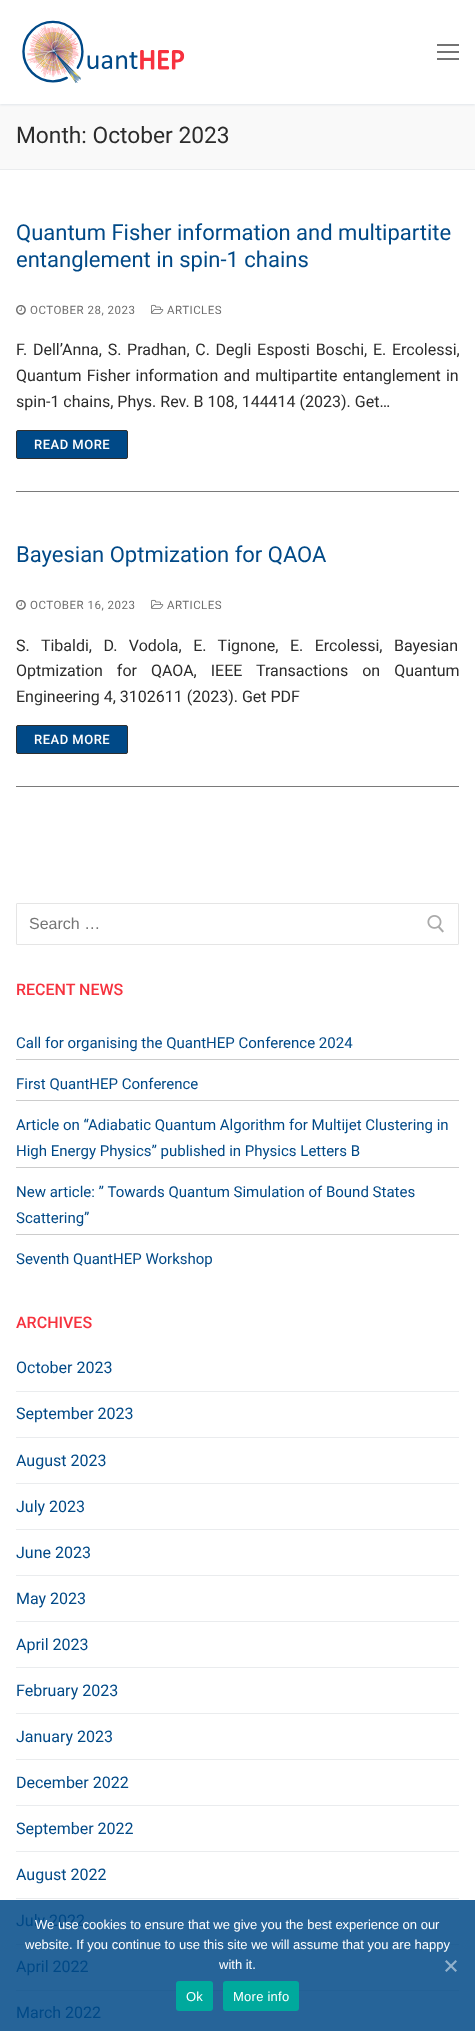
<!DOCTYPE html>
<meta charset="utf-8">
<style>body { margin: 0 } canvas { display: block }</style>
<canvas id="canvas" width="475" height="2031"></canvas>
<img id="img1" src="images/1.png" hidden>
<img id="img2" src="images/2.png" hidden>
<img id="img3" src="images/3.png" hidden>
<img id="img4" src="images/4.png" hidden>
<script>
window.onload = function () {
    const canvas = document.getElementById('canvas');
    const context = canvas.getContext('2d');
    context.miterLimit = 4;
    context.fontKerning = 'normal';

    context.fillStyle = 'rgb(255, 255, 255)';
    context.fillRect(0, 0, 475, 2031);
    context.fillStyle = 'rgb(38, 100, 153)';
    context.fillRect(0, 1900, 475, 131);
    context.fillStyle = 'rgb(249, 249, 249)';
    context.fillRect(0, 104, 475, 65);
    context.save();
    context.beginPath();
    context.rect(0, 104, 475, 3);
    context.clip();
    context.fillStyle = 'rgb(225, 229, 234)';
    context.filter = 'blur(1px)';
    context.beginPath();
    context.rect(0, 1, 475, 104);
    context.fill();
    context.filter = 'none';
    context.restore();
    context.drawImage(document.getElementById('img1'), 22, 20, 163, 63);
    context.fillStyle = 'rgb(115, 115, 115)';
    context.fillRect(437, 51, 22, 2);
    context.fillRect(437, 44, 22, 2);
    context.fillRect(437, 58, 22, 2);
    context.fillStyle = 'rgb(234, 236, 238)';
    context.fillRect(0, 169, 475, 1);
    context.fillStyle = 'rgb(122, 122, 122)';
    context.fillRect(16, 491, 443, 1);
    context.drawImage(document.getElementById('img2'), 16, 305, 10, 10);
    context.drawImage(document.getElementById('img3'), 151, 304, 13, 10);
    context.fillStyle = 'rgb(0, 73, 135)';
    context.beginPath();
    context.roundRect(16.5, 430.5, 111, 28, 1.5);
    context.fill();
    context.strokeStyle = 'rgb(47, 47, 47)';
    context.stroke();
    context.fillStyle = 'rgb(122, 122, 122)';
    context.fillRect(16, 786, 443, 1);
    context.drawImage(document.getElementById('img2'), 16, 600, 10, 10);
    context.drawImage(document.getElementById('img3'), 151, 599, 13, 10);
    context.fillStyle = 'rgb(0, 73, 135)';
    context.beginPath();
    context.roundRect(16.5, 725.5, 111, 28, 1.5);
    context.fill();
    context.stroke();
    context.beginPath();
    context.roundRect(16.5, 903.5, 442, 41, 0.5);
    context.strokeStyle = 'rgb(229, 229, 229)';
    context.stroke();
    context.drawImage(document.getElementById('img4'), 427, 915, 17, 18);
    context.fillStyle = 'rgb(204, 204, 204)';
    context.fillRect(16, 1059, 443, 1);
    context.fillRect(16, 1100, 443, 1);
    context.fillRect(16, 1167, 443, 1);
    context.fillRect(16, 1234, 443, 1);
    context.fillStyle = 'rgb(234, 236, 238)';
    context.fillRect(16, 1391, 443, 1);
    context.fillRect(16, 1437, 443, 1);
    context.fillRect(16, 1483, 443, 1);
    context.fillRect(16, 1529, 443, 1);
    context.fillRect(16, 1575, 443, 1);
    context.fillRect(16, 1621, 443, 1);
    context.fillRect(16, 1667, 443, 1);
    context.fillRect(16, 1713, 443, 1);
    context.fillRect(16, 1759, 443, 1);
    context.fillRect(16, 1805, 443, 1);
    context.fillRect(16, 1851, 443, 1);
    context.fillRect(16, 1898, 443, 1);
    context.fillStyle = 'rgb(35, 97, 150)';
    context.fillRect(16, 1944, 443, 1);
    context.fillRect(16, 1990, 443, 1);
    context.fillStyle = 'rgb(147, 178, 204)';
    context.beginPath();
    context.moveTo(455.5, 1960);
    context.lineTo(457, 1961.5);
    context.lineTo(446.5, 1972);
    context.lineTo(445, 1970.5);
    context.closePath();
    context.fill();
    context.beginPath();
    context.moveTo(445, 1961.5);
    context.lineTo(446.5, 1960);
    context.lineTo(457, 1970.5);
    context.lineTo(455.5, 1972);
    context.closePath();
    context.fill();
    context.fillStyle = 'rgb(0, 169, 157)';
    context.beginPath();
    context.roundRect(176, 1981, 37, 30, 3);
    context.fill();
    context.beginPath();
    context.roundRect(223, 1981, 76, 30, 3);
    context.fill();
    context.font = '22.75px Roboto';
    context.fillStyle = 'rgb(43, 43, 43)';
    context.fillText('Month: October 2023', 16, 143);
    context.font = '22px Roboto';
    context.fillStyle = 'rgb(0, 73, 135)';
    context.fillText('Quantum Fisher information and multipartite', 16, 240);
    context.fillText('entanglement in spin-1 chains', 16, 267);
    context.letterSpacing = '0.5px';
    context.font = '11.5px Roboto';
    context.fillStyle = 'rgb(109, 109, 109)';
    context.fillText('OCTOBER 28, 2023', 30, 314);
    context.fillText('ARTICLES', 167, 314);
    context.letterSpacing = '0px';
    context.wordSpacing = '1.75px';
    context.font = '16px Roboto';
    context.fillStyle = 'rgb(43, 43, 43)';
    context.fillText('F. Dell’Anna, S. Pradhan, C. Degli Esposti Boschi, E. Ercolessi,', 16, 355);
    context.wordSpacing = '1.25px';
    context.fillText('Quantum Fisher information and multipartite entanglement in', 16, 381);
    context.wordSpacing = '0px';
    context.fillText('spin-1 chains, Phys. Rev. B 108, 144414 (2023). Get…', 16, 407);
    context.letterSpacing = '0.5px';
    context.font = '500 13px Roboto';
    context.fillStyle = 'rgb(255, 255, 255)';
    context.fillText('READ MORE', 34, 449);
    context.letterSpacing = '0px';
    context.font = '22px Roboto';
    context.fillStyle = 'rgb(0, 73, 135)';
    context.fillText('Bayesian Optmization for QAOA', 16, 562);
    context.letterSpacing = '0.5px';
    context.font = '11.5px Roboto';
    context.fillStyle = 'rgb(109, 109, 109)';
    context.fillText('OCTOBER 16, 2023', 30, 609);
    context.fillText('ARTICLES', 167, 609);
    context.letterSpacing = '0px';
    context.wordSpacing = '7.5px';
    context.font = '16px Roboto';
    context.fillStyle = 'rgb(43, 43, 43)';
    context.fillText('S. Tibaldi, D. Vodola, E. Tignone, E. Ercolessi, Bayesian', 16, 651);
    context.wordSpacing = '10px';
    context.fillText('Optmization for QAOA, IEEE Transactions on Quantum', 16, 676);
    context.wordSpacing = '0px';
    context.fillText('Engineering 4, 3102611 (2023). Get PDF', 16, 702);
    context.letterSpacing = '0.5px';
    context.font = '500 13px Roboto';
    context.fillStyle = 'rgb(255, 255, 255)';
    context.fillText('READ MORE', 34, 744);
    context.letterSpacing = '0px';
    context.font = '16px Liberation Sans';
    context.fillStyle = 'rgb(117, 117, 117)';
    context.fillText('Search …', 29, 929);
    context.font = '500 16px Roboto';
    context.fillStyle = 'rgb(246, 50, 62)';
    context.fillText('RECENT NEWS', 16, 995);
    context.font = '15px Roboto';
    context.fillStyle = 'rgb(0, 73, 135)';
    context.fillText('Call for organising the QuantHEP Conference 2024', 16, 1048);
    context.fillText('First QuantHEP Conference', 16, 1089);
    context.fillText('Article on “Adiabatic Quantum Algorithm for Multijet Clustering in', 16, 1130);
    context.fillText('High Energy Physics” published in Physics Letters B', 16, 1156);
    context.fillText('New article: ” Towards Quantum Simulation of Bound States', 16, 1197);
    context.fillText('Scattering”', 16, 1223);
    context.fillText('Seventh QuantHEP Workshop', 16, 1264);
    context.font = '500 16px Roboto';
    context.fillStyle = 'rgb(246, 50, 62)';
    context.fillText('ARCHIVES', 16, 1328);
    context.font = '16px Roboto';
    context.fillStyle = 'rgb(0, 73, 135)';
    context.fillText('October 2023', 16, 1373);
    context.fillText('September 2023', 16, 1419);
    context.fillText('August 2023', 16, 1466);
    context.fillText('July 2023', 16, 1512);
    context.fillText('June 2023', 16, 1558);
    context.fillText('May 2023', 16, 1604);
    context.fillText('April 2023', 16, 1650);
    context.fillText('February 2023', 16, 1696);
    context.fillText('January 2023', 16, 1742);
    context.fillText('December 2022', 16, 1788);
    context.fillText('September 2022', 16, 1834);
    context.fillText('August 2022', 16, 1880);
    context.fillText('July 2022', 16, 1926);
    context.fillText('April 2022', 16, 1972);
    context.fillText('March 2022', 16, 2018);
    context.font = '13px Liberation Sans';
    context.fillStyle = 'rgb(255, 255, 255)';
    context.fillText('We use cookies to ensure that we give you the best experience on our', 35, 1929);
    context.fillText('website. If you continue to use this site we will assume that you are happy', 25, 1949);
    context.fillText('with it.', 219, 1969);
    context.letterSpacing = '0.25px';
    context.fillText('Ok', 186, 2001);
    context.fillText('More info', 233, 2001);
};
</script>
